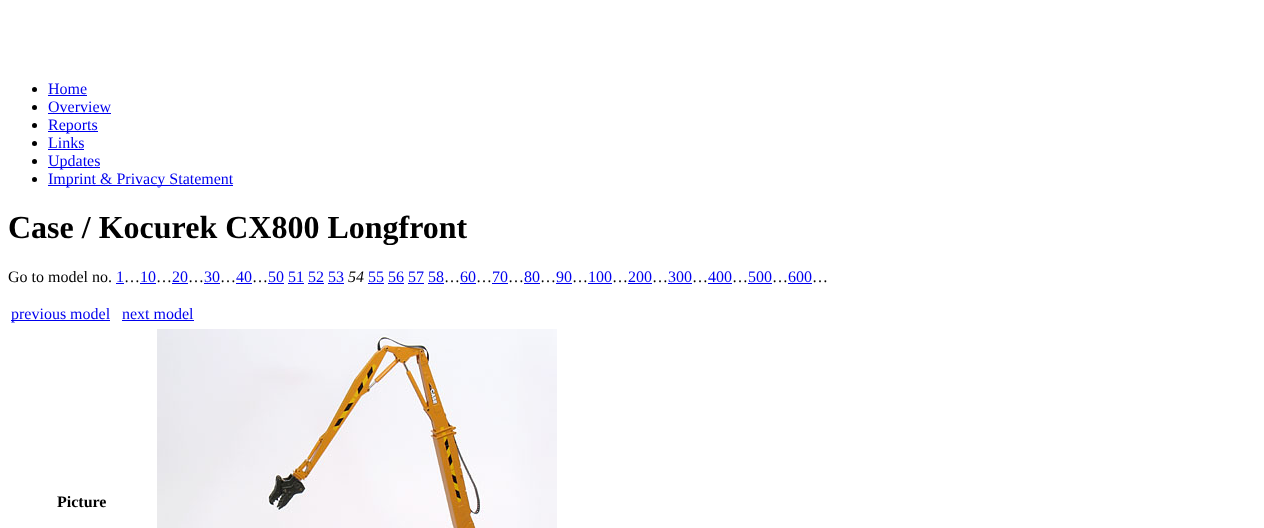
<!DOCTYPE html>
<meta charset="utf-8">
<style>body { margin: 0 } canvas { display: block }</style>
<canvas id="canvas" width="1264" height="528"></canvas>
<img id="img1" src="images/1.png" hidden>
<script>
window.onload = function () {
    const canvas = document.getElementById('canvas');
    const context = canvas.getContext('2d');
    context.miterLimit = 4;
    context.fontKerning = 'normal';

    context.fillStyle = 'rgb(255, 255, 255)';
    context.fillRect(0, 0, 1264, 528);
    context.fillStyle = 'rgb(0, 0, 0)';
    context.beginPath();
    context.arc(34.5, 89.5, 2.5, 0, 2 * Math.PI);
    context.fill();
    context.fillStyle = 'rgb(0, 0, 238)';
    context.fillRect(48, 95, 39, 1);
    context.fillStyle = 'rgb(0, 0, 0)';
    context.beginPath();
    context.arc(34.5, 107.5, 2.5, 0, 2 * Math.PI);
    context.fill();
    context.fillStyle = 'rgb(0, 0, 238)';
    context.fillRect(48, 113, 63, 1);
    context.fillStyle = 'rgb(0, 0, 0)';
    context.beginPath();
    context.arc(34.5, 125.5, 2.5, 0, 2 * Math.PI);
    context.fill();
    context.fillStyle = 'rgb(0, 0, 238)';
    context.fillRect(48, 131, 50, 1);
    context.fillStyle = 'rgb(0, 0, 0)';
    context.beginPath();
    context.arc(34.5, 143.5, 2.5, 0, 2 * Math.PI);
    context.fill();
    context.fillStyle = 'rgb(0, 0, 238)';
    context.fillRect(48, 149, 36, 1);
    context.fillStyle = 'rgb(0, 0, 0)';
    context.beginPath();
    context.arc(34.5, 161.5, 2.5, 0, 2 * Math.PI);
    context.fill();
    context.fillStyle = 'rgb(0, 0, 238)';
    context.fillRect(48, 167, 52, 1);
    context.fillStyle = 'rgb(0, 0, 0)';
    context.beginPath();
    context.arc(34.5, 179.5, 2.5, 0, 2 * Math.PI);
    context.fill();
    context.fillStyle = 'rgb(0, 0, 238)';
    context.fillRect(48, 185, 185, 1);
    context.fillRect(116, 283, 8, 1);
    context.fillRect(140, 283, 16, 1);
    context.fillRect(172, 283, 16, 1);
    context.fillRect(204, 283, 16, 1);
    context.fillRect(236, 283, 16, 1);
    context.fillRect(268, 283, 16, 1);
    context.fillRect(368, 283, 16, 1);
    context.fillRect(460, 283, 16, 1);
    context.fillRect(492, 283, 16, 1);
    context.fillRect(524, 283, 16, 1);
    context.fillRect(556, 283, 16, 1);
    context.fillRect(588, 283, 24, 1);
    context.fillRect(628, 283, 24, 1);
    context.fillRect(668, 283, 24, 1);
    context.fillRect(708, 283, 24, 1);
    context.fillRect(748, 283, 24, 1);
    context.fillRect(788, 283, 24, 1);
    context.fillRect(288, 283, 16, 1);
    context.fillRect(308, 283, 16, 1);
    context.fillRect(328, 283, 16, 1);
    context.fillRect(388, 283, 16, 1);
    context.fillRect(408, 283, 16, 1);
    context.fillRect(428, 283, 16, 1);
    context.fillRect(11, 320, 99, 1);
    context.fillRect(122, 320, 72, 1);
    context.drawImage(document.getElementById('img1'), 157, 329, 400, 199);
    context.font = '16px Liberation Serif';
    context.fillText('Home', 48, 94);
    context.fillText('Overview', 48, 112);
    context.fillText('Reports', 48, 130);
    context.fillText('Links', 48, 148);
    context.fillText('Updates', 48, 166);
    context.fillText('Imprint & Privacy Statement', 48, 184);
    context.font = 'bold 32px Liberation Serif';
    context.fillStyle = 'rgb(0, 0, 0)';
    context.fillText('Case / Kocurek CX800 Longfront', 8, 238);
    context.font = '16px Liberation Serif';
    context.fillText('Go to model no.', 8, 282);
    context.fillStyle = 'rgb(0, 0, 238)';
    context.fillText('1', 116, 282);
    context.fillStyle = 'rgb(0, 0, 0)';
    context.fillText('…', 124, 282);
    context.fillStyle = 'rgb(0, 0, 238)';
    context.fillText('10', 140, 282);
    context.fillStyle = 'rgb(0, 0, 0)';
    context.fillText('…', 156, 282);
    context.fillStyle = 'rgb(0, 0, 238)';
    context.fillText('20', 172, 282);
    context.fillStyle = 'rgb(0, 0, 0)';
    context.fillText('…', 188, 282);
    context.fillStyle = 'rgb(0, 0, 238)';
    context.fillText('30', 204, 282);
    context.fillStyle = 'rgb(0, 0, 0)';
    context.fillText('…', 220, 282);
    context.fillStyle = 'rgb(0, 0, 238)';
    context.fillText('40', 236, 282);
    context.fillStyle = 'rgb(0, 0, 0)';
    context.fillText('…', 252, 282);
    context.fillStyle = 'rgb(0, 0, 238)';
    context.fillText('50 51 52 53', 268, 282);
    context.font = 'italic 16px Liberation Serif';
    context.fillStyle = 'rgb(0, 0, 0)';
    context.fillText('54', 348, 282);
    context.font = '16px Liberation Serif';
    context.fillStyle = 'rgb(0, 0, 238)';
    context.fillText('55 56 57 58', 368, 282);
    context.fillStyle = 'rgb(0, 0, 0)';
    context.fillText('…', 444, 282);
    context.fillStyle = 'rgb(0, 0, 238)';
    context.fillText('60', 460, 282);
    context.fillStyle = 'rgb(0, 0, 0)';
    context.fillText('…', 476, 282);
    context.fillStyle = 'rgb(0, 0, 238)';
    context.fillText('70', 492, 282);
    context.fillStyle = 'rgb(0, 0, 0)';
    context.fillText('…', 508, 282);
    context.fillStyle = 'rgb(0, 0, 238)';
    context.fillText('80', 524, 282);
    context.fillStyle = 'rgb(0, 0, 0)';
    context.fillText('…', 540, 282);
    context.fillStyle = 'rgb(0, 0, 238)';
    context.fillText('90', 556, 282);
    context.fillStyle = 'rgb(0, 0, 0)';
    context.fillText('…', 572, 282);
    context.fillStyle = 'rgb(0, 0, 238)';
    context.fillText('100', 588, 282);
    context.fillStyle = 'rgb(0, 0, 0)';
    context.fillText('…', 612, 282);
    context.fillStyle = 'rgb(0, 0, 238)';
    context.fillText('200', 628, 282);
    context.fillStyle = 'rgb(0, 0, 0)';
    context.fillText('…', 652, 282);
    context.fillStyle = 'rgb(0, 0, 238)';
    context.fillText('300', 668, 282);
    context.fillStyle = 'rgb(0, 0, 0)';
    context.fillText('…', 692, 282);
    context.fillStyle = 'rgb(0, 0, 238)';
    context.fillText('400', 708, 282);
    context.fillStyle = 'rgb(0, 0, 0)';
    context.fillText('…', 732, 282);
    context.fillStyle = 'rgb(0, 0, 238)';
    context.fillText('500', 748, 282);
    context.fillStyle = 'rgb(0, 0, 0)';
    context.fillText('…', 772, 282);
    context.fillStyle = 'rgb(0, 0, 238)';
    context.fillText('600', 788, 282);
    context.fillStyle = 'rgb(0, 0, 0)';
    context.fillText('…', 812, 282);
    context.fillStyle = 'rgb(0, 0, 238)';
    context.fillText('previous model', 11, 319);
    context.fillText('next model', 122, 319);
    context.font = 'bold 16px Liberation Serif';
    context.fillStyle = 'rgb(0, 0, 0)';
    context.fillText('Picture', 57, 507);
};
</script>
